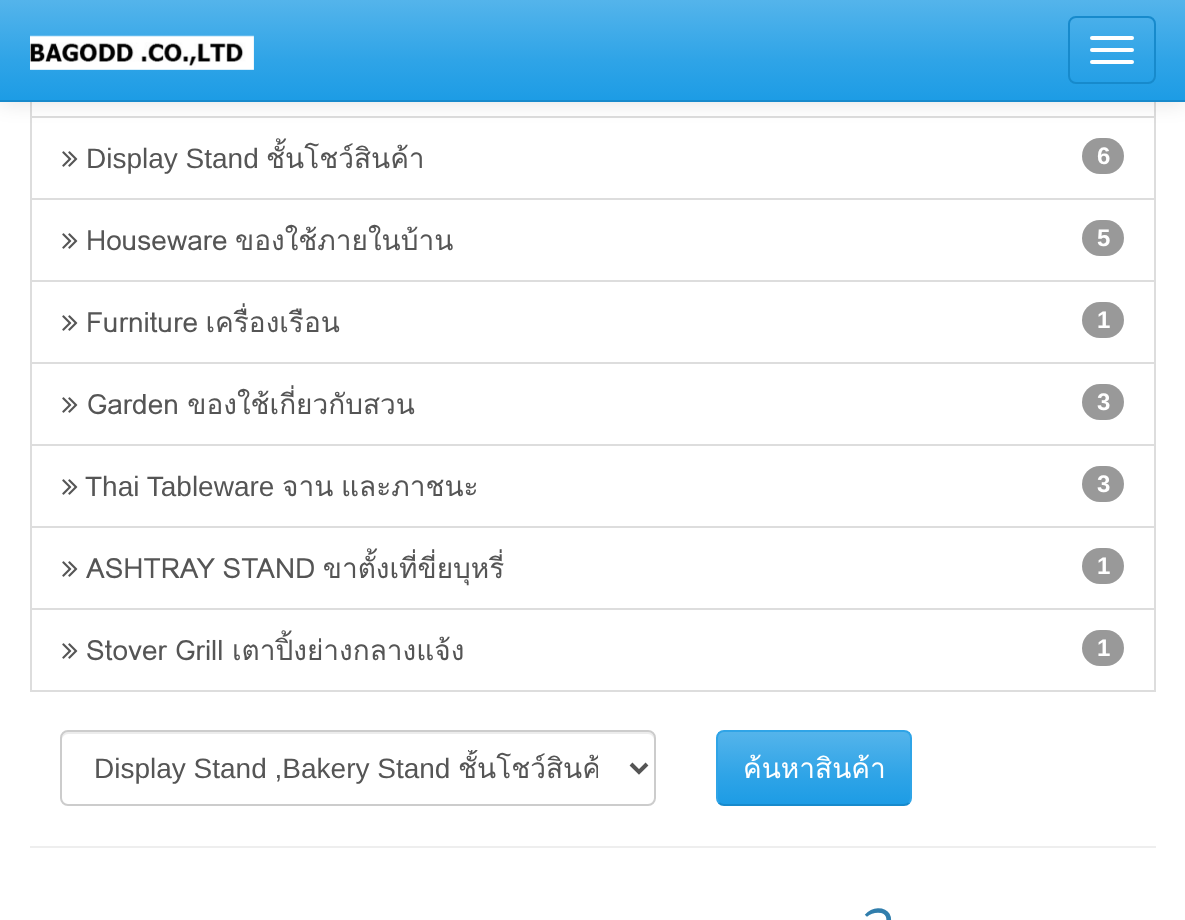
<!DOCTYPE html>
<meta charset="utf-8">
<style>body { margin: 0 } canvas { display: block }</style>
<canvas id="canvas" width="1185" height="920"></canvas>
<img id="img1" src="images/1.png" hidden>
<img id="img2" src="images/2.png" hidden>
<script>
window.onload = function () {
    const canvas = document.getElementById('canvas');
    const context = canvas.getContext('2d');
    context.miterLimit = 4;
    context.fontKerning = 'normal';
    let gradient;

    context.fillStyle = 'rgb(255, 255, 255)';
    context.fillRect(0, 0, 1185, 920);
    context.strokeStyle = 'rgb(221, 221, 221)';
    context.lineWidth = 2;
    context.strokeRect(31, 35, 1124, 82);
    context.strokeRect(31, 117, 1124, 82);
    context.fillStyle = 'rgba(0, 0, 0, 0.1)';
    context.filter = 'blur(10px)';
    context.beginPath();
    context.rect(0, 2, 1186, 102);
    context.fill();
    context.filter = 'none';
    gradient = context.createLinearGradient(593, 0, 593, 100);
    gradient.addColorStop(0, 'rgb(84, 180, 235)');
    gradient.addColorStop(0.6, 'rgb(47, 164, 231)');
    gradient.addColorStop(1, 'rgb(29, 156, 229)');
    context.fillStyle = gradient;
    context.fillRect(0, 0, 1185, 100);
    context.fillStyle = 'rgb(23, 138, 204)';
    context.fillRect(0, 100, 1185, 2);
    context.drawImage(document.getElementById('img1'), 30, 35, 224, 35);
    context.beginPath();
    context.roundRect(1069, 17, 86, 66, 7);
    context.strokeStyle = 'rgb(23, 138, 204)';
    context.stroke();
    context.fillStyle = 'rgb(255, 255, 255)';
    context.beginPath();
    context.roundRect(1090, 36, 44, 4, 2);
    context.fill();
    context.beginPath();
    context.roundRect(1090, 48, 44, 4, 2);
    context.fill();
    context.beginPath();
    context.roundRect(1090, 60, 44, 4, 2);
    context.fill();
    context.drawImage(document.getElementById('img2'), 62, 151, 16, 16);
    context.fillStyle = 'rgb(153, 153, 153)';
    context.beginPath();
    context.roundRect(1082, 138, 42, 36, 18);
    context.fill();
    context.strokeStyle = 'rgb(221, 221, 221)';
    context.strokeRect(31, 199, 1124, 82);
    context.drawImage(document.getElementById('img2'), 62, 233, 16, 16);
    context.beginPath();
    context.roundRect(1082, 220, 42, 36, 18);
    context.fill();
    context.strokeRect(31, 281, 1124, 82);
    context.drawImage(document.getElementById('img2'), 62, 315, 16, 16);
    context.beginPath();
    context.roundRect(1082, 302, 42, 36, 18);
    context.fill();
    context.strokeRect(31, 363, 1124, 82);
    context.drawImage(document.getElementById('img2'), 62, 397, 16, 16);
    context.beginPath();
    context.roundRect(1082, 384, 42, 36, 18);
    context.fill();
    context.strokeRect(31, 445, 1124, 82);
    context.drawImage(document.getElementById('img2'), 62, 479, 16, 16);
    context.beginPath();
    context.roundRect(1082, 466, 42, 36, 18);
    context.fill();
    context.strokeRect(31, 527, 1124, 82);
    context.drawImage(document.getElementById('img2'), 62, 561, 16, 16);
    context.beginPath();
    context.roundRect(1082, 548, 42, 36, 18);
    context.fill();
    context.strokeRect(31, 609, 1124, 82);
    context.drawImage(document.getElementById('img2'), 62, 643, 16, 16);
    context.beginPath();
    context.roundRect(1082, 630, 42, 36, 18);
    context.fill();
    context.fillStyle = 'rgb(236, 236, 236)';
    context.beginPath();
    context.moveTo(68, 734);
    context.lineTo(648, 734);
    context.bezierCurveTo(651, 734, 654, 737, 654, 740);
    context.lineTo(654, 738);
    context.bezierCurveTo(654, 735, 651, 732, 648, 732);
    context.lineTo(68, 732);
    context.bezierCurveTo(65, 732, 62, 735, 62, 738);
    context.lineTo(62, 740);
    context.bezierCurveTo(62, 737, 65, 734, 68, 734);
    context.closePath();
    context.fill();
    context.beginPath();
    context.roundRect(61, 731, 594, 74, 7);
    context.strokeStyle = 'rgb(204, 204, 204)';
    context.stroke();
    context.beginPath();
    context.moveTo(631, 764);
    context.lineTo(639, 772);
    context.lineTo(647, 764);
    context.strokeStyle = 'rgb(85, 85, 85)';
    context.lineWidth = 4;
    context.stroke();
    context.save();
    context.beginPath();
    context.roundRect(716, 730, 196, 76, 8);
    context.clip();
    gradient = context.createLinearGradient(814, 732, 814, 804);
    gradient.addColorStop(0, 'rgb(84, 180, 235)');
    gradient.addColorStop(0.6, 'rgb(47, 164, 231)');
    gradient.addColorStop(1, 'rgb(29, 156, 229)');
    context.fillStyle = gradient;
    context.fillRect(718, 732, 192, 72);
    context.restore();
    context.beginPath();
    context.moveTo(909, 803);
    context.bezierCurveTo(907.5, 804.5, 906, 805, 904, 805);
    context.lineTo(724, 805);
    context.bezierCurveTo(722, 805, 720.5, 804.5, 719, 803);
    context.strokeStyle = 'rgb(23, 138, 204)';
    context.lineWidth = 2;
    context.stroke();
    context.beginPath();
    context.moveTo(719, 803);
    context.bezierCurveTo(717.5, 801.5, 717, 800, 717, 798);
    context.lineTo(717, 738);
    context.bezierCurveTo(717, 736, 717.5, 734.5, 719, 733);
    context.bezierCurveTo(720.5, 731.5, 722, 731, 724, 731);
    context.lineTo(904, 731);
    context.bezierCurveTo(906, 731, 907.5, 731.5, 909, 733);
    context.bezierCurveTo(910.5, 734.5, 911, 736, 911, 738);
    context.lineTo(911, 798);
    context.bezierCurveTo(911, 800, 910.5, 801.5, 909, 803);
    context.strokeStyle = 'rgb(47, 164, 231)';
    context.stroke();
    context.fillStyle = 'rgb(238, 238, 238)';
    context.fillRect(30, 846, 1126, 2);
    context.font = '28px Liberation Sans';
    context.fillStyle = 'rgb(85, 85, 85)';
    context.fillText('Display Stand', 86, 168);
    context.font = '28px Loma';
    context.fillText('ชั้นโชว์สินค้า', 266, 168);
    context.font = 'bold 24px Liberation Sans';
    context.fillStyle = 'rgb(255, 255, 255)';
    context.fillText('6', 1097, 164);
    context.wordSpacing = '-2px';
    context.font = '28px Loma';
    context.fillStyle = 'rgb(85, 85, 85)';
    context.fillText('Houseware ของใช้ภายในบ้าน', 86, 250);
    context.wordSpacing = '0px';
    context.font = 'bold 24px Liberation Sans';
    context.fillStyle = 'rgb(255, 255, 255)';
    context.fillText('5', 1097, 246);
    context.wordSpacing = '-2px';
    context.font = '28px Loma';
    context.fillStyle = 'rgb(85, 85, 85)';
    context.fillText('Furniture เครื่องเรือน', 86, 332);
    context.wordSpacing = '0px';
    context.font = 'bold 24px Liberation Sans';
    context.fillStyle = 'rgb(255, 255, 255)';
    context.fillText('1', 1097, 328);
    context.wordSpacing = '-1px';
    context.font = '28px Loma';
    context.fillStyle = 'rgb(85, 85, 85)';
    context.fillText('Garden ของใช้เกี่ยวกับสวน', 87, 414);
    context.wordSpacing = '0px';
    context.font = 'bold 24px Liberation Sans';
    context.fillStyle = 'rgb(255, 255, 255)';
    context.fillText('3', 1097, 410);
    context.font = '28px Liberation Sans';
    context.fillStyle = 'rgb(85, 85, 85)';
    context.fillText('Thai Tableware', 85, 496);
    context.font = '28px Loma';
    context.fillText('จาน', 282, 496);
    context.fillText('และภาชนะ', 341, 496);
    context.font = 'bold 24px Liberation Sans';
    context.fillStyle = 'rgb(255, 255, 255)';
    context.fillText('3', 1097, 492);
    context.wordSpacing = '-2px';
    context.font = '28px Loma';
    context.fillStyle = 'rgb(85, 85, 85)';
    context.fillText('ASHTRAY STAND ขาตั้งเที่ขี่ยบุหรี่', 86, 578);
    context.wordSpacing = '0px';
    context.font = 'bold 24px Liberation Sans';
    context.fillStyle = 'rgb(255, 255, 255)';
    context.fillText('1', 1097, 574);
    context.wordSpacing = '-1px';
    context.font = '28px Loma';
    context.fillStyle = 'rgb(85, 85, 85)';
    context.fillText('Stover Grill เตาปิ้งย่างกลางแจ้ง', 86, 660);
    context.wordSpacing = '0px';
    context.font = 'bold 24px Liberation Sans';
    context.fillStyle = 'rgb(255, 255, 255)';
    context.fillText('1', 1097, 656);
    context.font = '28px Liberation Sans';
    context.fillStyle = 'rgb(85, 85, 85)';
    context.fillText('Display Stand ,Bakery Stand', 94, 778);
    context.save();
    context.beginPath();
    context.rect(94, 750, 504, 36);
    context.clip();
    context.font = '28px Loma';
    context.fillText('ชั้นโชว์สินค้', 458, 778);
    context.restore();
    context.font = '28px Loma';
    context.fillStyle = 'rgb(255, 255, 255)';
    context.fillText('ค้นหาสินค้า', 743, 778);
    context.font = '60px Loma';
    context.fillStyle = 'rgb(49, 126, 172)';
    context.fillText('ว', 862, 942);
};
</script>
